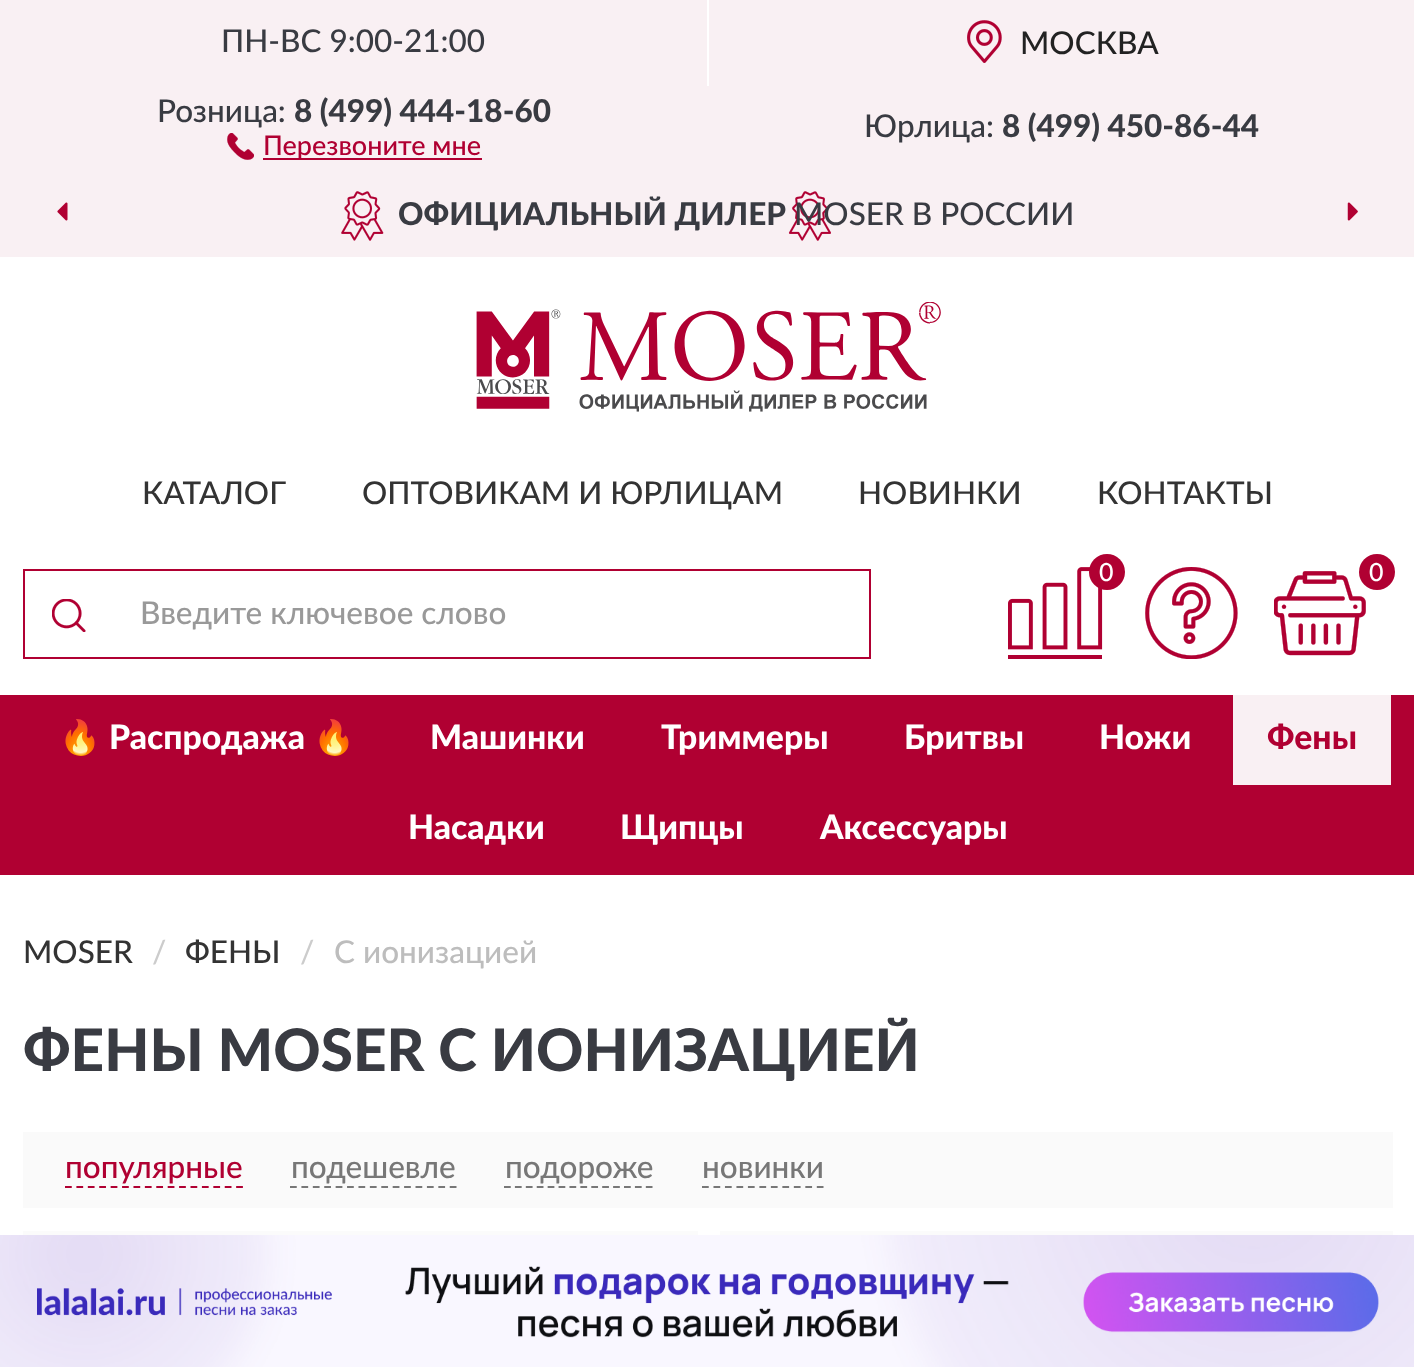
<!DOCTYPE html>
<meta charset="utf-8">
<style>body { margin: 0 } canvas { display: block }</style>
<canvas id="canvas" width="1414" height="1367"></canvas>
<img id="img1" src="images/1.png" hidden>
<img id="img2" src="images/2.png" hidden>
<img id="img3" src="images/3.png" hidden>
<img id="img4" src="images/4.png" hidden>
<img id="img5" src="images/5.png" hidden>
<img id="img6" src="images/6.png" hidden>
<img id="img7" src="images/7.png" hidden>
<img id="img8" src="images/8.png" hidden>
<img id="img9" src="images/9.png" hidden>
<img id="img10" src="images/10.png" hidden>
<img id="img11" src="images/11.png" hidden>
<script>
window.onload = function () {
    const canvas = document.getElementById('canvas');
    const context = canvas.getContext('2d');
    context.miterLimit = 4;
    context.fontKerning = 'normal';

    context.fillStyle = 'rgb(255, 255, 255)';
    context.fillRect(0, 0, 1414, 1367);
    context.fillStyle = 'rgb(249, 240, 243)';
    context.fillRect(0, 0, 1414, 257);
    context.fillStyle = 'rgb(255, 255, 255)';
    context.fillRect(707, 0, 2, 86);
    context.drawImage(document.getElementById('img1'), 967, 20, 35, 43);
    context.drawImage(document.getElementById('img2'), 227, 133, 27, 27);
    context.fillStyle = 'rgb(176, 0, 50)';
    context.fillRect(263, 158, 219, 2);
    context.drawImage(document.getElementById('img3'), 341, 191, 490, 50);
    context.drawImage(document.getElementById('img4'), 57, 202, 11, 19);
    context.drawImage(document.getElementById('img5'), 1347, 202, 11, 19);
    context.drawImage(document.getElementById('img6'), 476, 302, 465, 110);
    context.drawImage(document.getElementById('img7'), 1008, 567, 95, 92);
    context.beginPath();
    context.arc(1107, 572, 18, 0, 2 * Math.PI);
    context.fill();
    context.drawImage(document.getElementById('img8'), 1145, 567, 93, 92);
    context.drawImage(document.getElementById('img9'), 1274, 571, 92, 85);
    context.beginPath();
    context.arc(1377, 572, 18, 0, 2 * Math.PI);
    context.fill();
    context.drawImage(document.getElementById('img10'), 52, 599, 34, 33);
    context.fillRect(23, 569, 848, 2);
    context.fillRect(23, 657, 90, 2);
    context.fillRect(23, 569, 2, 90);
    context.fillRect(869, 569, 2, 90);
    context.fillRect(113, 657, 758, 2);
    context.fillRect(0, 695, 1414, 180);
    context.fillStyle = 'rgb(249, 240, 243)';
    context.fillRect(1233, 695, 158, 90);
    context.fillStyle = 'rgb(250, 250, 250)';
    context.fillRect(23, 1132, 1370, 76);
    context.beginPath();
    context.moveTo(65, 1187);
    context.lineTo(243, 1187);
    context.strokeStyle = 'rgb(176, 0, 50)';
    context.lineWidth = 2.2;
    context.setLineDash([6.75, 4.66]);
    context.stroke();
    context.beginPath();
    context.moveTo(290, 1187);
    context.lineTo(457, 1187);
    context.strokeStyle = 'rgb(119, 119, 119)';
    context.stroke();
    context.beginPath();
    context.moveTo(504, 1187);
    context.lineTo(652.5, 1187);
    context.setLineDash([6.75, 4.16]);
    context.stroke();
    context.beginPath();
    context.moveTo(702, 1187);
    context.lineTo(823.5, 1187);
    context.setLineDash([6.75, 4.73]);
    context.stroke();
    context.fillStyle = 'rgb(251, 251, 251)';
    context.fillRect(23, 1231, 675, 4);
    context.fillRect(720, 1231, 673, 4);
    context.drawImage(document.getElementById('img11'), 0, 1235, 1414, 132);
    context.font = '500 31.5px Lato';
    context.fillStyle = 'rgb(57, 59, 66)';
    context.fillText('ПН-ВС 9:00-21:00', 221, 52);
    context.fillStyle = 'rgb(34, 34, 34)';
    context.fillText('МОСКВА', 1020, 54);
    context.fillStyle = 'rgb(57, 59, 66)';
    context.fillText('Розница:', 157, 122);
    context.font = '900 31.5px Lato';
    context.fillText('8 (499) 444-18-60', 294, 122);
    context.font = '500 27px Lato';
    context.fillStyle = 'rgb(176, 0, 50)';
    context.fillText('Перезвоните мне', 263, 155);
    context.font = '500 31.5px Lato';
    context.fillStyle = 'rgb(57, 59, 66)';
    context.fillText('Юрлица:', 864, 137);
    context.font = '900 31.5px Lato';
    context.fillText('8 (499) 450-86-44', 1002, 137);
    context.fillText('ОФИЦИАЛЬНЫЙ ДИЛЕР', 398, 225);
    context.font = '500 31.5px Lato';
    context.fillText('MOSER В РОССИИ', 794, 225);
    context.fillStyle = 'rgb(51, 51, 51)';
    context.fillText('КАТАЛОГ', 142, 504);
    context.fillText('ОПТОВИКАМ И ЮРЛИЦАМ', 362, 504);
    context.fillText('НОВИНКИ', 858, 504);
    context.fillText('КОНТАКТЫ', 1097, 504);
    context.font = '500 25px Lato';
    context.fillStyle = 'rgb(255, 255, 255)';
    context.fillText('0', 1099, 581);
    context.fillText('0', 1369, 581);
    context.font = '500 31.5px Lato';
    context.fillStyle = 'rgb(153, 153, 153)';
    context.fillText('Введите ключевое слово', 140, 624);
    context.font = '33.75px Noto Color Emoji';
    context.fillStyle = 'rgb(255, 255, 255)';
    context.fillText('🔥', 59, 749);
    context.font = '900 33.75px Lato';
    context.fillText('Распродажа', 109, 749);
    context.font = '33.75px Noto Color Emoji';
    context.fillText('🔥', 313, 749);
    context.font = '900 33.75px Lato';
    context.fillText('Машинки', 430, 749);
    context.fillText('Триммеры', 661, 749);
    context.fillText('Бритвы', 904, 749);
    context.fillText('Ножи', 1099, 749);
    context.fillStyle = 'rgb(176, 0, 50)';
    context.fillText('Фены', 1267, 749);
    context.fillStyle = 'rgb(255, 255, 255)';
    context.fillText('Насадки', 408, 839);
    context.fillText('Щипцы', 620, 839);
    context.fillText('Аксессуары', 820, 839);
    context.font = '500 31.5px Lato';
    context.fillStyle = 'rgb(51, 51, 51)';
    context.fillText('MOSER', 23, 963);
    context.fillStyle = 'rgb(204, 204, 204)';
    context.fillText('/', 152, 963);
    context.fillStyle = 'rgb(51, 51, 51)';
    context.fillText('ФЕНЫ', 185, 963);
    context.fillStyle = 'rgb(204, 204, 204)';
    context.fillText('/', 300, 963);
    context.fillStyle = 'rgb(189, 189, 189)';
    context.fillText('С ионизацией', 334, 963);
    context.font = '900 58.5px Lato';
    context.fillStyle = 'rgb(57, 59, 66)';
    context.fillText('ФЕНЫ MOSER С ИОНИЗАЦИЕЙ', 23, 1071);
    context.font = '500 31.5px Lato';
    context.fillStyle = 'rgb(176, 0, 50)';
    context.fillText('популярные', 65, 1178);
    context.fillStyle = 'rgb(119, 119, 119)';
    context.fillText('подешевле', 291, 1178);
    context.fillText('подороже', 505, 1178);
    context.fillText('новинки', 702, 1178);
};
</script>
